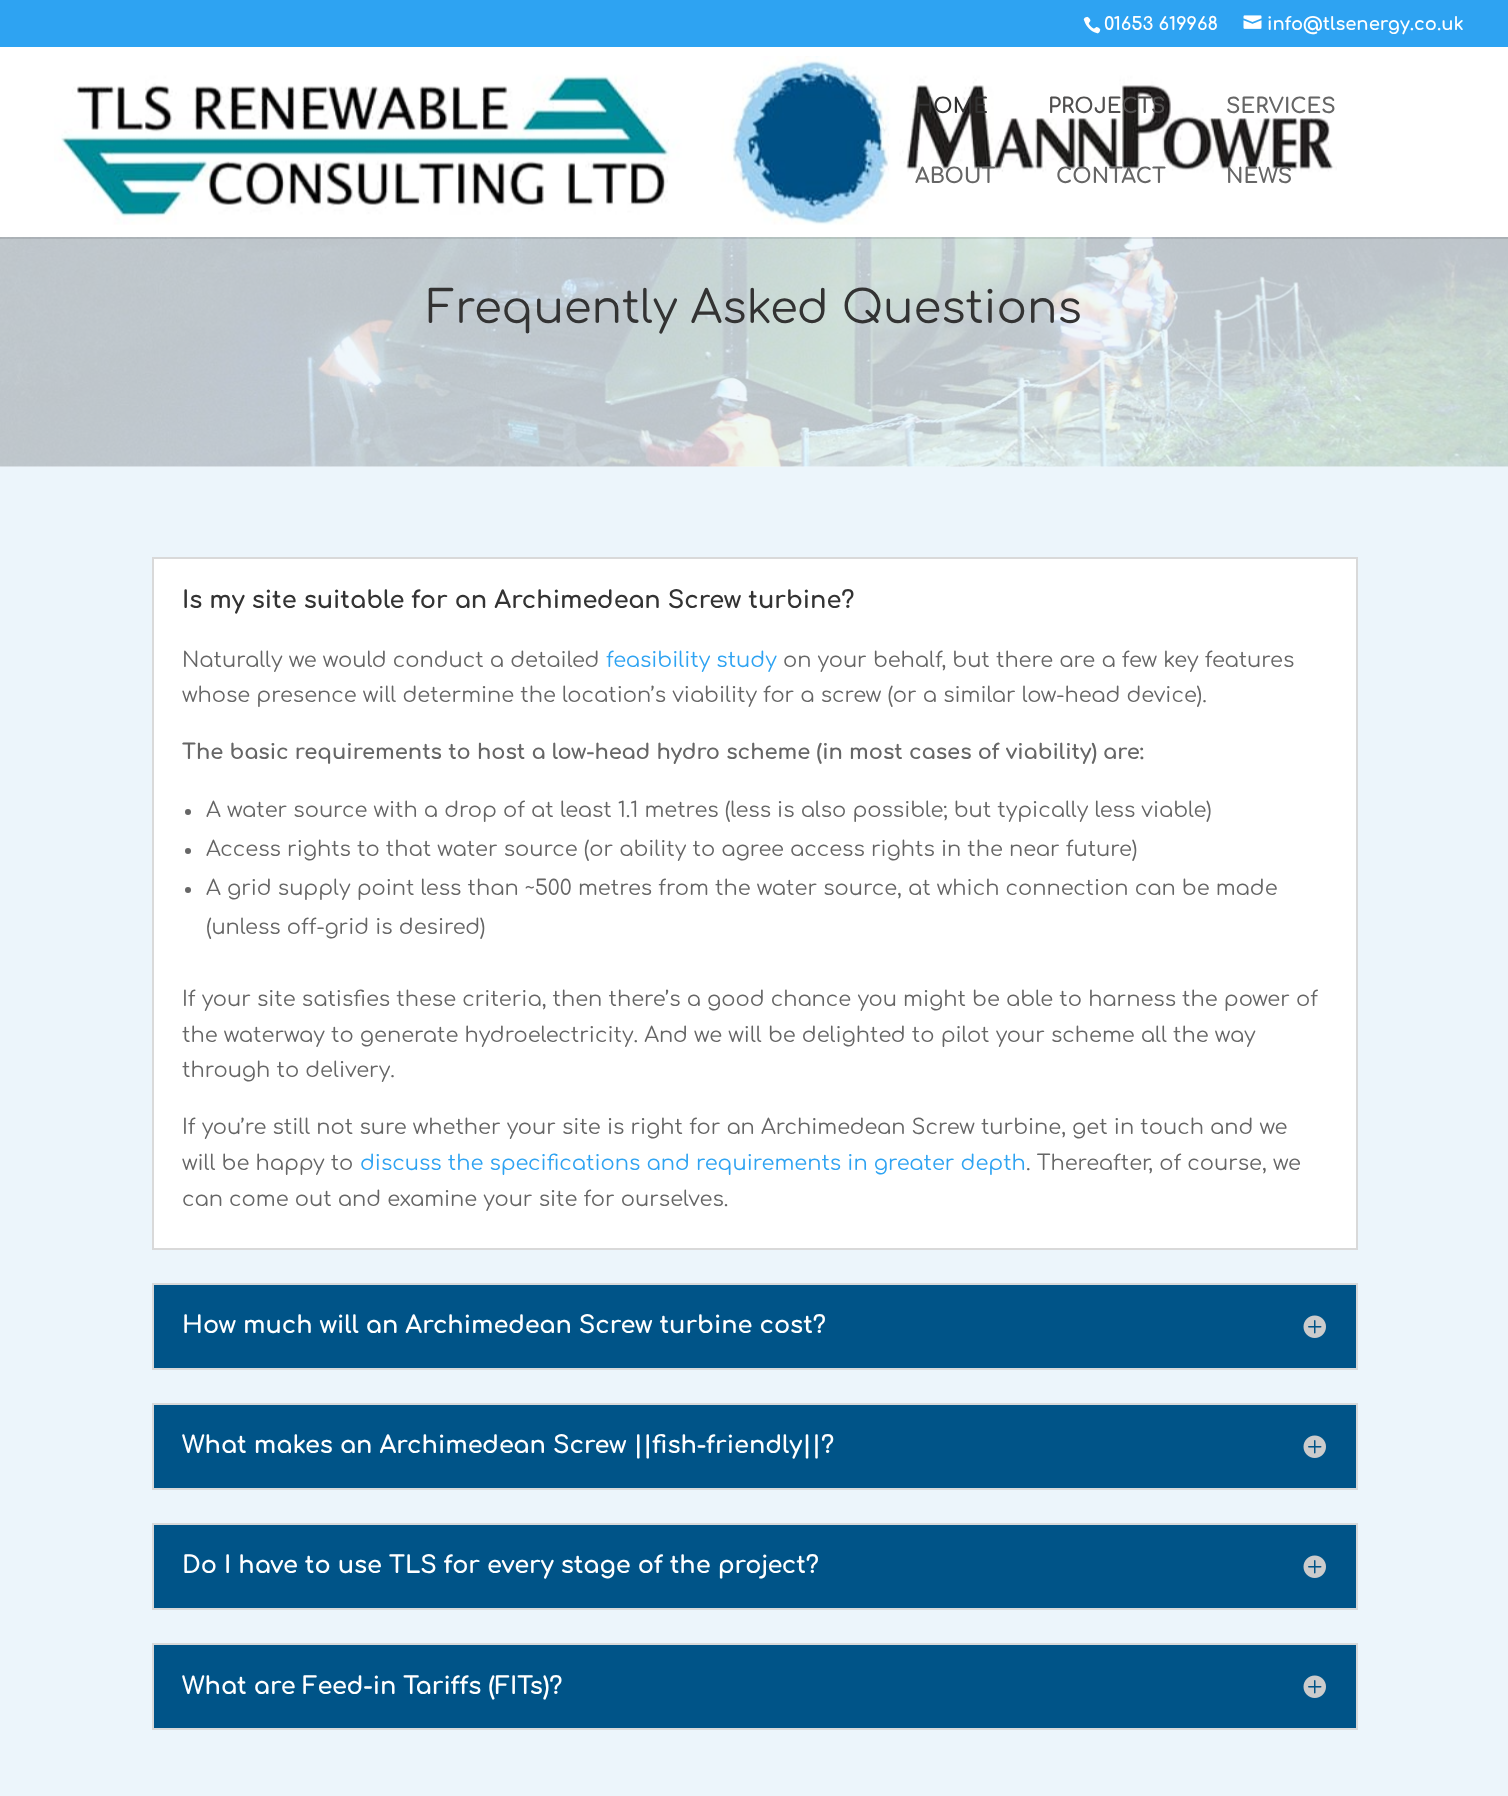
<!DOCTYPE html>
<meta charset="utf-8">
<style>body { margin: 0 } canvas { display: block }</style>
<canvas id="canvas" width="1508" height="1796"></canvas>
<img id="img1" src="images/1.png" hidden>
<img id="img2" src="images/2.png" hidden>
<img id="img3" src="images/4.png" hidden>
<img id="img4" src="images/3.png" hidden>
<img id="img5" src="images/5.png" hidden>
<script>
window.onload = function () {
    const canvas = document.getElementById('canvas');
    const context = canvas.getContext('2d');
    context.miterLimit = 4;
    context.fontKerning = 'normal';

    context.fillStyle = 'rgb(236, 245, 251)';
    context.fillRect(0, 0, 1508, 1796);
    context.fillStyle = 'rgb(46, 163, 242)';
    context.fillRect(0, 0, 1508, 47);
    context.drawImage(document.getElementById('img1'), 1083, 16, 18, 18);
    context.drawImage(document.getElementById('img2'), 1243, 15, 19, 14);
    context.fillStyle = 'rgb(240, 247, 252)';
    context.fillRect(0, 466, 1508, 1);
    context.drawImage(document.getElementById('img3'), 0, 237, 1508, 230);
    context.fillStyle = 'rgba(0, 0, 0, 0.1)';
    context.fillRect(0, 237, 1508, 2);
    context.fillStyle = 'rgb(255, 255, 255)';
    context.fillRect(0, 47, 1508, 190);
    context.drawImage(document.getElementById('img4'), 54, 56, 1283, 169);
    context.beginPath();
    context.rect(153, 558, 1204, 691);
    context.fill();
    context.strokeStyle = 'rgb(217, 217, 217)';
    context.lineWidth = 2;
    context.stroke();
    context.fillStyle = 'rgb(102, 102, 102)';
    context.beginPath();
    context.arc(188, 812, 3, 0, 2 * Math.PI);
    context.fill();
    context.beginPath();
    context.arc(188, 851, 3, 0, 2 * Math.PI);
    context.fill();
    context.beginPath();
    context.arc(188, 890, 3, 0, 2 * Math.PI);
    context.fill();
    context.fillStyle = 'rgb(0, 84, 136)';
    context.beginPath();
    context.rect(153, 1284, 1204, 85);
    context.fill();
    context.stroke();
    context.drawImage(document.getElementById('img5'), 1303, 1315, 23, 23);
    context.beginPath();
    context.rect(153, 1404, 1204, 85);
    context.fill();
    context.stroke();
    context.drawImage(document.getElementById('img5'), 1303, 1435, 23, 23);
    context.beginPath();
    context.rect(153, 1524, 1204, 85);
    context.fill();
    context.stroke();
    context.drawImage(document.getElementById('img5'), 1303, 1555, 23, 23);
    context.beginPath();
    context.rect(153, 1644, 1204, 85);
    context.fill();
    context.stroke();
    context.drawImage(document.getElementById('img5'), 1303, 1675, 23, 23);
    context.font = 'bold 18px Comfortaa';
    context.fillStyle = 'rgb(255, 255, 255)';
    context.fillText('01653 619968', 1104, 30);
    context.fillText('info@tlsenergy.co.uk', 1267, 30);
    context.font = 'bold 21px Comfortaa';
    context.fillStyle = 'rgb(51, 51, 51)';
    context.fillText('HOME', 915, 113);
    context.fillStyle = 'rgb(80, 79, 79)';
    context.fillText('PROJECTS', 1048, 113);
    context.fillStyle = 'rgb(102, 102, 102)';
    context.fillText('SERVICES', 1226, 113);
    context.fillText('ABOUT', 915, 183);
    context.fillText('CONTACT', 1056, 183);
    context.fillText('NEWS', 1226, 183);
    context.font = '45px Comfortaa';
    context.fillStyle = 'rgb(51, 51, 51)';
    context.fillText('Frequently Asked Questions', 427, 323);
    context.font = 'bold 24px Comfortaa';
    context.fillText('Is my site suitable for an Archimedean Screw turbine?', 182, 608);
    context.font = '21px Comfortaa';
    context.fillStyle = 'rgb(102, 102, 102)';
    context.fillText('Naturally we would conduct a detailed', 182, 667);
    context.fillStyle = 'rgb(46, 163, 242)';
    context.fillText('feasibility study', 606, 667);
    context.fillStyle = 'rgb(102, 102, 102)';
    context.fillText('on your behalf, but there are a few key features', 783, 667);
    context.fillText('whose presence will determine the location’s viability for a screw (or a similar low-head device).', 182, 702);
    context.font = 'bold 21px Comfortaa';
    context.fillText('The basic requirements to host a low-head hydro scheme (in most cases of viability) are:', 182, 759);
    context.font = '21px Comfortaa';
    context.fillText('A water source with a drop of at least 1.1 metres (less is also possible; but typically less viable)', 206, 817);
    context.fillText('Access rights to that water source (or ability to agree access rights in the near future)', 206, 856);
    context.fillText('A grid supply point less than ~500 metres from the water source, at which connection can be made', 206, 895);
    context.fillText('(unless off-grid is desired)', 206, 934);
    context.fillText('If your site satisfies these criteria, then there’s a good chance you might be able to harness the power of', 182, 1006);
    context.fillText('the waterway to generate hydroelectricity. And we will be delighted to pilot your scheme all the way', 182, 1042);
    context.fillText('through to delivery.', 182, 1077);
    context.fillText('If you’re still not sure whether your site is right for an Archimedean Screw turbine, get in touch and we', 182, 1134);
    context.fillText('will be happy to', 182, 1170);
    context.fillStyle = 'rgb(46, 163, 242)';
    context.fillText('discuss the specifications and requirements in greater depth', 360, 1170);
    context.fillStyle = 'rgb(102, 102, 102)';
    context.fillText('. Thereafter, of course, we', 1026, 1170);
    context.fillText('can come out and examine your site for ourselves.', 182, 1206);
    context.font = 'bold 24px Comfortaa';
    context.fillStyle = 'rgb(255, 255, 255)';
    context.fillText('How much will an Archimedean Screw turbine cost?', 182, 1333);
    context.fillText('What makes an Archimedean Screw ||fish-friendly||?', 182, 1453);
    context.fillText('Do I have to use TLS for every stage of the project?', 182, 1573);
    context.fillText('What are Feed-in Tariffs (FITs)?', 182, 1694);
};
</script>
